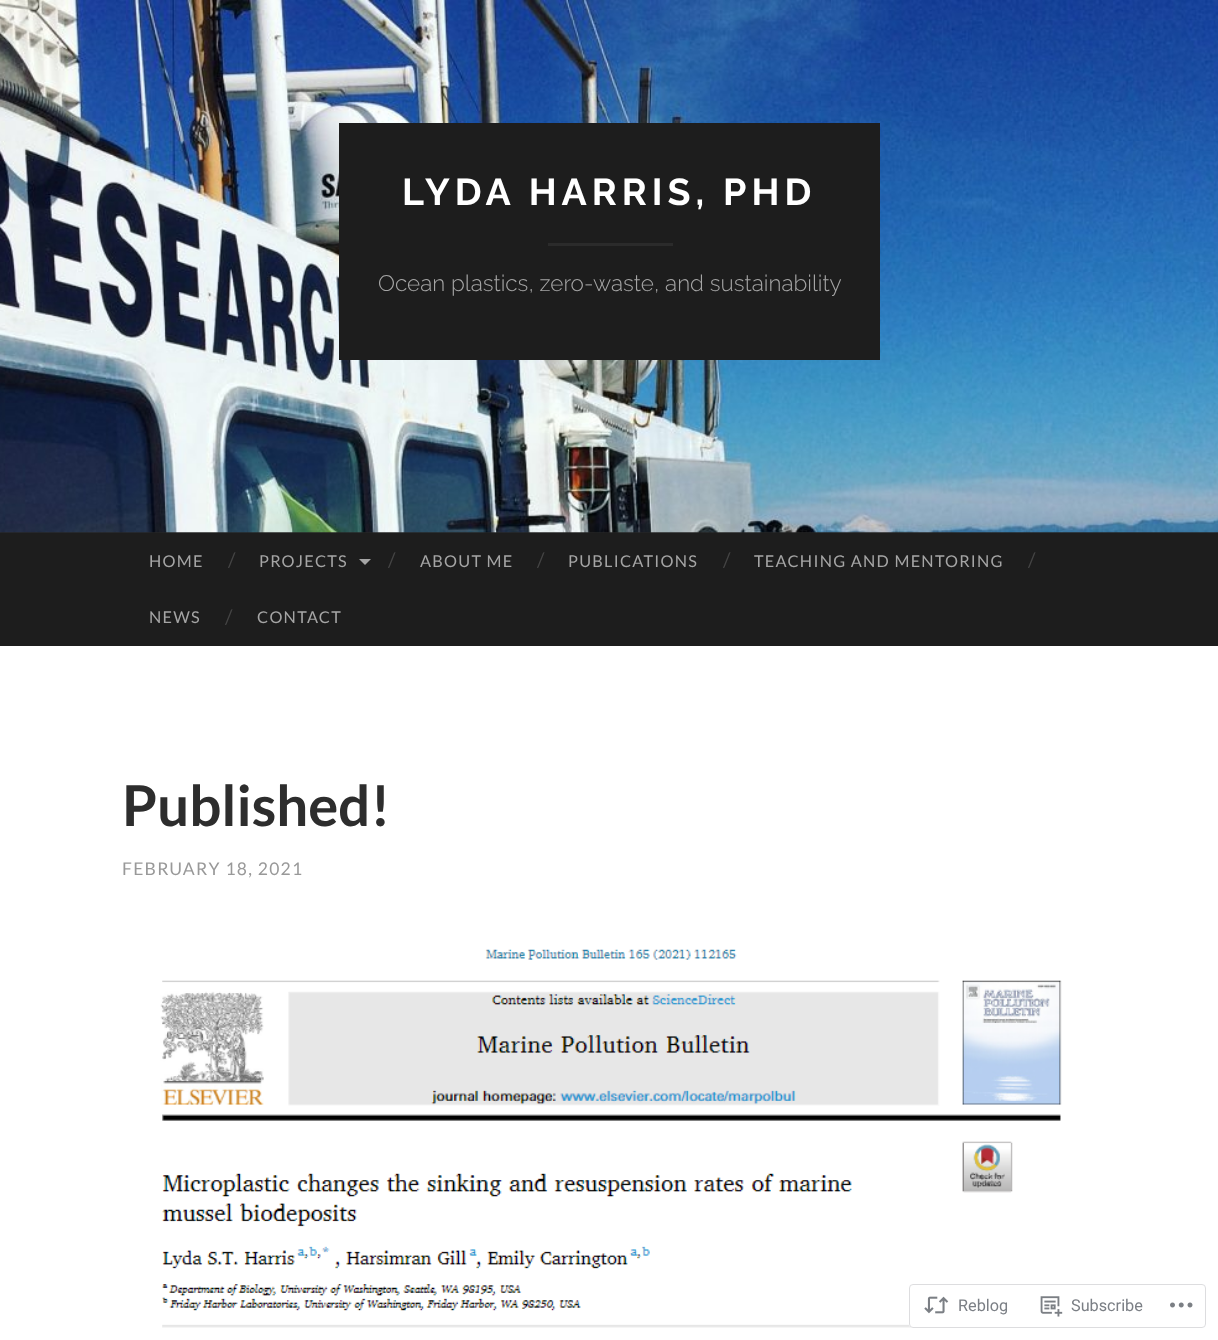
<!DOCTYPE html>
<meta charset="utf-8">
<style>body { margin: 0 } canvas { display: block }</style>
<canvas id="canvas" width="1218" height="1340"></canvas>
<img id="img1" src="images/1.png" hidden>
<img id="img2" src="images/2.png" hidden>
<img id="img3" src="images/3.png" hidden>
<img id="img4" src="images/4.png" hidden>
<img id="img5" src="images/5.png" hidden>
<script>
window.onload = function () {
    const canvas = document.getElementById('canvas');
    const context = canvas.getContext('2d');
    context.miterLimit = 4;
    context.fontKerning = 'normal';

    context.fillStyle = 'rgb(255, 255, 255)';
    context.fillRect(0, 0, 1218, 1340);
    context.fillStyle = 'rgb(38, 38, 38)';
    context.fillRect(0, 532, 1218, 1);
    context.drawImage(document.getElementById('img1'), 0, 0, 1218, 533);
    context.fillStyle = 'rgb(29, 29, 29)';
    context.fillRect(339, 123, 541, 237);
    context.fillStyle = 'rgb(43, 43, 43)';
    context.fillRect(548, 243, 125, 3);
    context.fillStyle = 'rgb(29, 29, 29)';
    context.fillRect(0, 533, 1218, 113);
    context.fillStyle = 'rgb(165, 165, 165)';
    context.beginPath();
    context.moveTo(359, 559);
    context.lineTo(371, 559);
    context.lineTo(365, 565);
    context.closePath();
    context.fill();
    context.drawImage(document.getElementById('img2'), 160, 949, 902, 379);
    context.fillStyle = 'rgba(255, 255, 255, 0.98)';
    context.beginPath();
    context.roundRect(909, 1284, 297, 44, 4);
    context.fill();
    context.beginPath();
    context.roundRect(909.5, 1284.5, 296, 43, 3.5);
    context.strokeStyle = 'rgba(220, 220, 222, 0.98)';
    context.stroke();
    context.drawImage(document.getElementById('img3'), 924, 1296, 25, 18);
    context.drawImage(document.getElementById('img4'), 1040, 1296, 23, 21);
    context.drawImage(document.getElementById('img5'), 1170, 1302, 23, 6);
    context.letterSpacing = '5px';
    context.font = 'bold 37.5px Raleway';
    context.fillStyle = 'rgb(255, 255, 255)';
    context.fillText('LYDA HARRIS, PHD', 402, 205);
    context.letterSpacing = '0px';
    context.font = '300 22.5px Raleway';
    context.fillStyle = 'rgb(165, 165, 165)';
    context.fillText('Ocean plastics, zero-waste, and sustainability', 378, 291);
    context.letterSpacing = '1.25px';
    context.font = '16.25px Lato';
    context.fillText('HOME', 149, 567);
    context.letterSpacing = '0px';
    context.font = '20px Lato';
    context.fillStyle = 'rgb(68, 68, 68)';
    context.fillText('/', 228, 567);
    context.letterSpacing = '1.25px';
    context.font = '16.25px Lato';
    context.fillStyle = 'rgb(165, 165, 165)';
    context.fillText('PROJECTS', 259, 567);
    context.letterSpacing = '0px';
    context.font = '20px Lato';
    context.fillStyle = 'rgb(68, 68, 68)';
    context.fillText('/', 388, 567);
    context.letterSpacing = '1.25px';
    context.font = '16.25px Lato';
    context.fillStyle = 'rgb(165, 165, 165)';
    context.fillText('ABOUT ME', 420, 567);
    context.letterSpacing = '0px';
    context.font = '20px Lato';
    context.fillStyle = 'rgb(68, 68, 68)';
    context.fillText('/', 537, 567);
    context.letterSpacing = '1.25px';
    context.font = '16.25px Lato';
    context.fillStyle = 'rgb(165, 165, 165)';
    context.fillText('PUBLICATIONS', 568, 567);
    context.letterSpacing = '0px';
    context.font = '20px Lato';
    context.fillStyle = 'rgb(68, 68, 68)';
    context.fillText('/', 723, 567);
    context.letterSpacing = '1.25px';
    context.font = '16.25px Lato';
    context.fillStyle = 'rgb(165, 165, 165)';
    context.fillText('TEACHING AND MENTORING', 754, 567);
    context.letterSpacing = '0px';
    context.font = '20px Lato';
    context.fillStyle = 'rgb(68, 68, 68)';
    context.fillText('/', 1028, 567);
    context.letterSpacing = '1.25px';
    context.font = '16.25px Lato';
    context.fillStyle = 'rgb(165, 165, 165)';
    context.fillText('NEWS', 149, 623);
    context.letterSpacing = '0px';
    context.font = '20px Lato';
    context.fillStyle = 'rgb(68, 68, 68)';
    context.fillText('/', 225, 624);
    context.letterSpacing = '1.25px';
    context.font = '16.25px Lato';
    context.fillStyle = 'rgb(165, 165, 165)';
    context.fillText('CONTACT', 257, 623);
    context.letterSpacing = '0px';
    context.font = 'bold 56.25px Lato';
    context.fillStyle = 'rgb(45, 45, 45)';
    context.fillText('Published!', 122, 826);
    context.letterSpacing = '1.25px';
    context.font = '17.5px Lato';
    context.fillStyle = 'rgb(153, 153, 153)';
    context.fillText('FEBRUARY 18, 2021', 122, 875);
    context.letterSpacing = '0px';
    context.font = '16.25px Roboto';
    context.fillStyle = 'rgb(123, 127, 133)';
    context.fillText('Reblog', 958, 1311);
    context.fillText('Subscribe', 1071, 1311);
};
</script>
